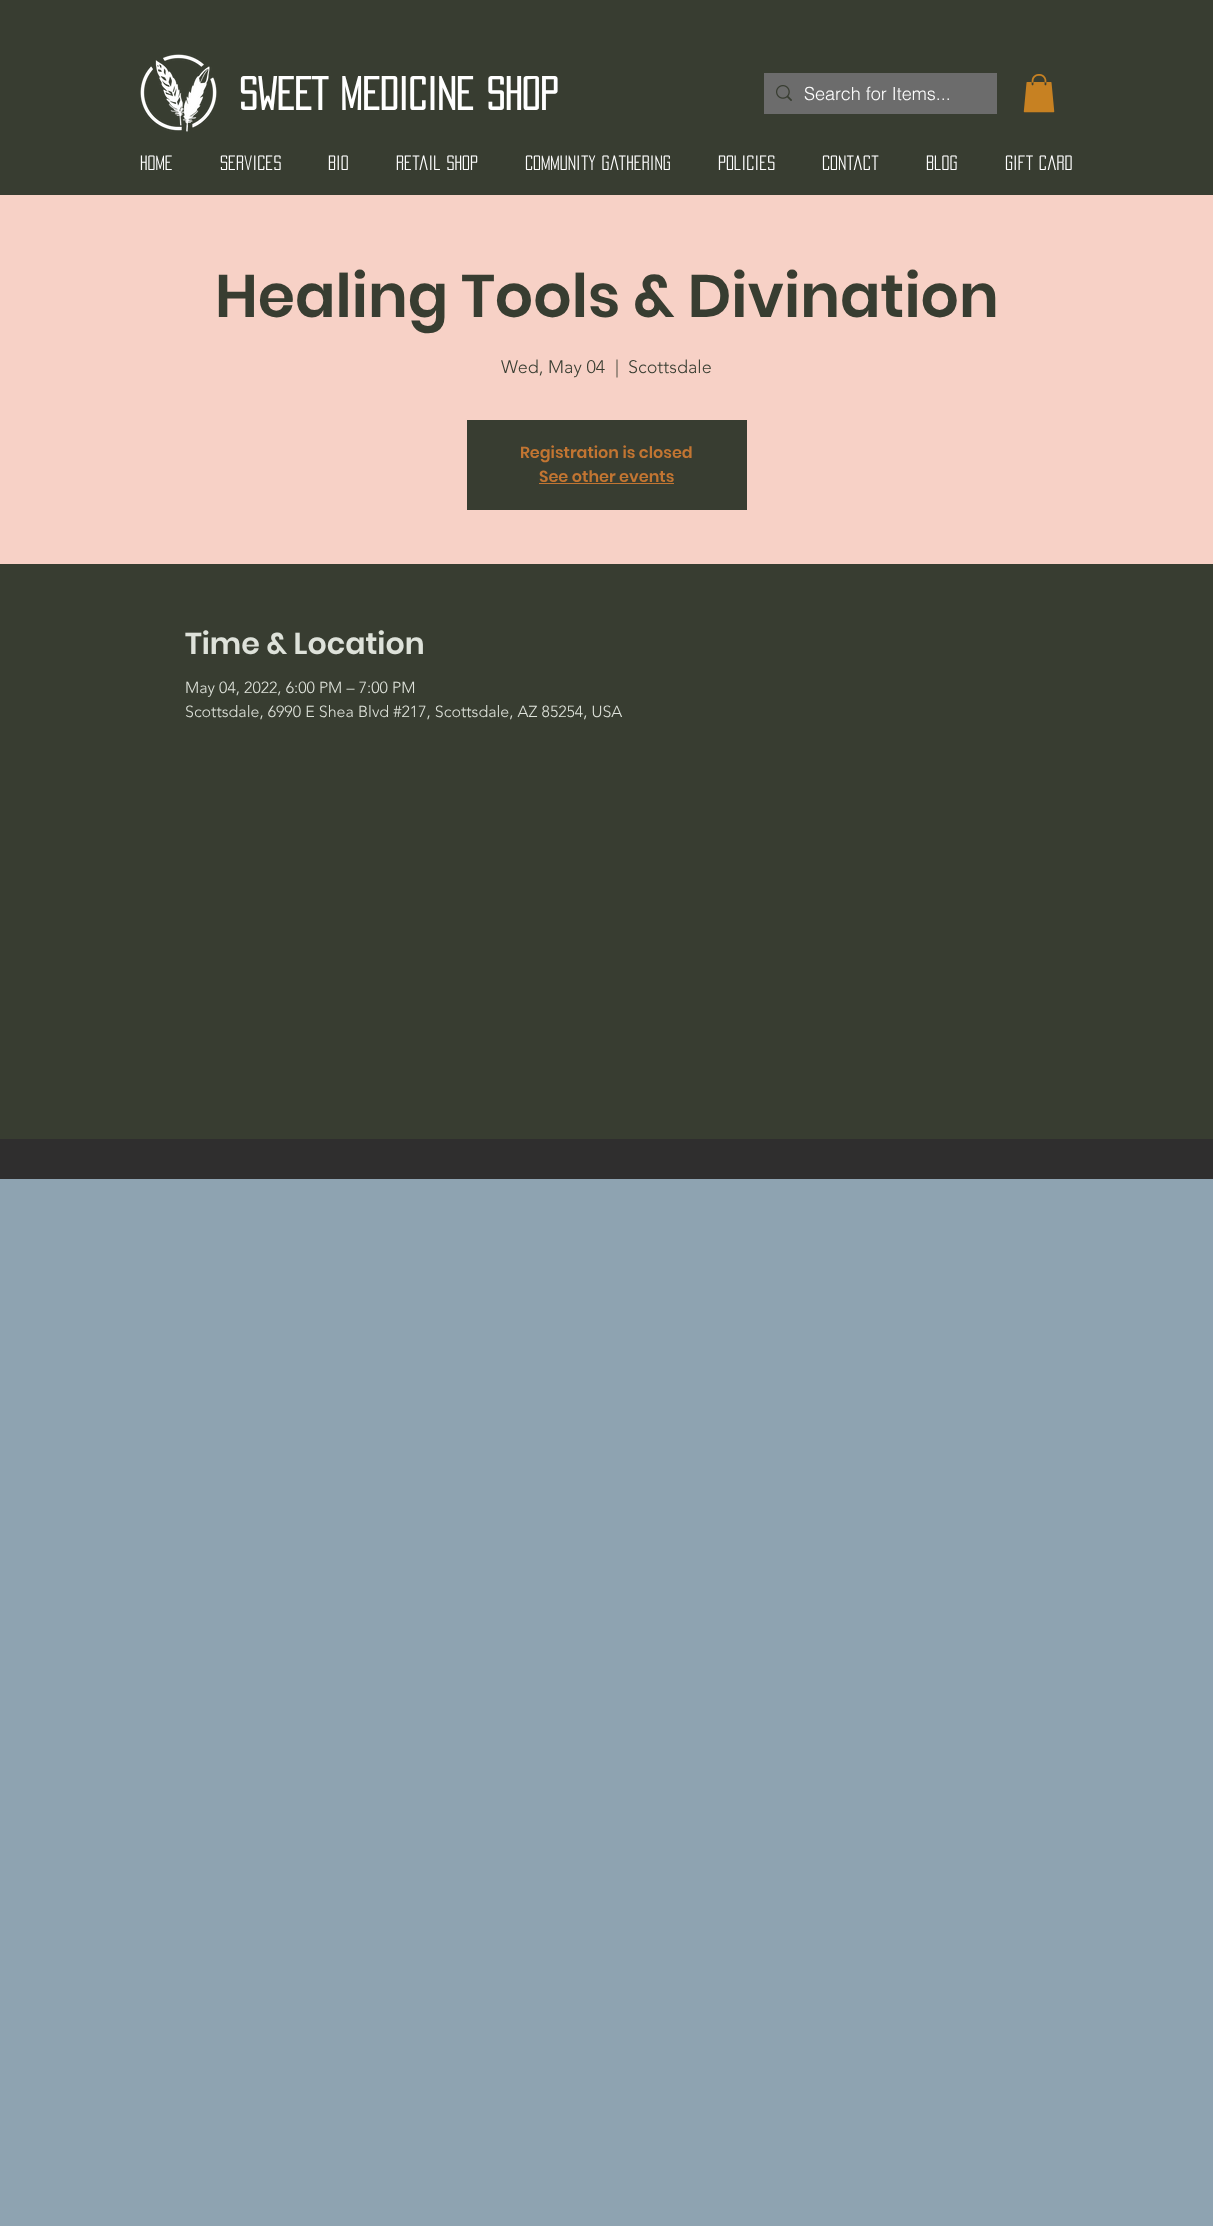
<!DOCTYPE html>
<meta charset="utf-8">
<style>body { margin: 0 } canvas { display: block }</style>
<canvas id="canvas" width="1213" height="2226"></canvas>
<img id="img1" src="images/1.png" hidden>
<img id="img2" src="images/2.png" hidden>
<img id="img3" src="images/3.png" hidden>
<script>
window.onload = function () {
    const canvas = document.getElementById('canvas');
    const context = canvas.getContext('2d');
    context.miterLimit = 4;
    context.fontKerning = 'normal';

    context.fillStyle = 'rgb(142, 163, 177)';
    context.fillRect(0, 0, 1213, 2226);
    context.fillStyle = 'rgb(56, 61, 49)';
    context.fillRect(0, 0, 1213, 195);
    context.drawImage(document.getElementById('img1'), 140, 54, 77, 78);
    context.fillStyle = 'rgb(108, 108, 108)';
    context.fillRect(764, 73, 233, 41);
    context.drawImage(document.getElementById('img2'), 776, 85, 16, 16);
    context.drawImage(document.getElementById('img3'), 1023, 74, 32, 39);
    context.fillStyle = 'rgb(247, 209, 198)';
    context.fillRect(0, 195, 1213, 369);
    context.fillStyle = 'rgb(56, 61, 49)';
    context.fillRect(467, 420, 280, 90);
    context.fillStyle = 'rgb(194, 117, 50)';
    context.fillRect(539, 483, 135, 1);
    context.fillStyle = 'rgb(56, 61, 49)';
    context.fillRect(0, 564, 1213, 575);
    context.fillStyle = 'rgb(47, 46, 46)';
    context.fillRect(0, 1139, 1213, 40);
    context.font = 'bold 41px "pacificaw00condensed"';
    context.fillStyle = 'rgb(255, 255, 255)';
    context.fillText('SWEET MEDICINE SHOP', 239, 110);
    context.font = '300 18px helvetica';
    context.fillText('Search for Items...', 804, 100);
    context.font = '18px "pacificaw00condensed"';
    context.fillText('Home', 140, 170);
    context.fillText('Services', 220, 170);
    context.fillText('Bio', 328, 170);
    context.fillText('Retail Shop', 396, 170);
    context.fillText('Community Gathering', 525, 170);
    context.fillText('Policies', 718, 170);
    context.fillText('Contact', 822, 170);
    context.fillText('Blog', 926, 170);
    context.fillText('Gift Card', 1005, 170);
    context.font = '600 60px Poppins';
    context.fillStyle = 'rgb(56, 61, 49)';
    context.fillText('Healing Tools & Divination', 215, 317);
    context.font = '300 18px "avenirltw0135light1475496"';
    context.fillText('Wed, May 04', 501, 373);
    context.fillText('|', 615, 373);
    context.fillText('Scottsdale', 628, 373);
    context.font = '600 16px Poppins';
    context.fillStyle = 'rgb(194, 117, 50)';
    context.fillText('Registration is closed', 520, 458);
    context.fillText('See other events', 539, 482);
    context.font = '600 30px Poppins';
    context.fillStyle = 'rgb(222, 226, 218)';
    context.fillText('Time & Location', 185, 654);
    context.font = '300 16px "avenirltw0135light1475496"';
    context.fillText('May 04, 2022, 6:00 PM – 7:00 PM', 185, 693);
    context.fillText('Scottsdale, 6990 E Shea Blvd #217, Scottsdale, AZ 85254, USA', 185, 717);
};
</script>
